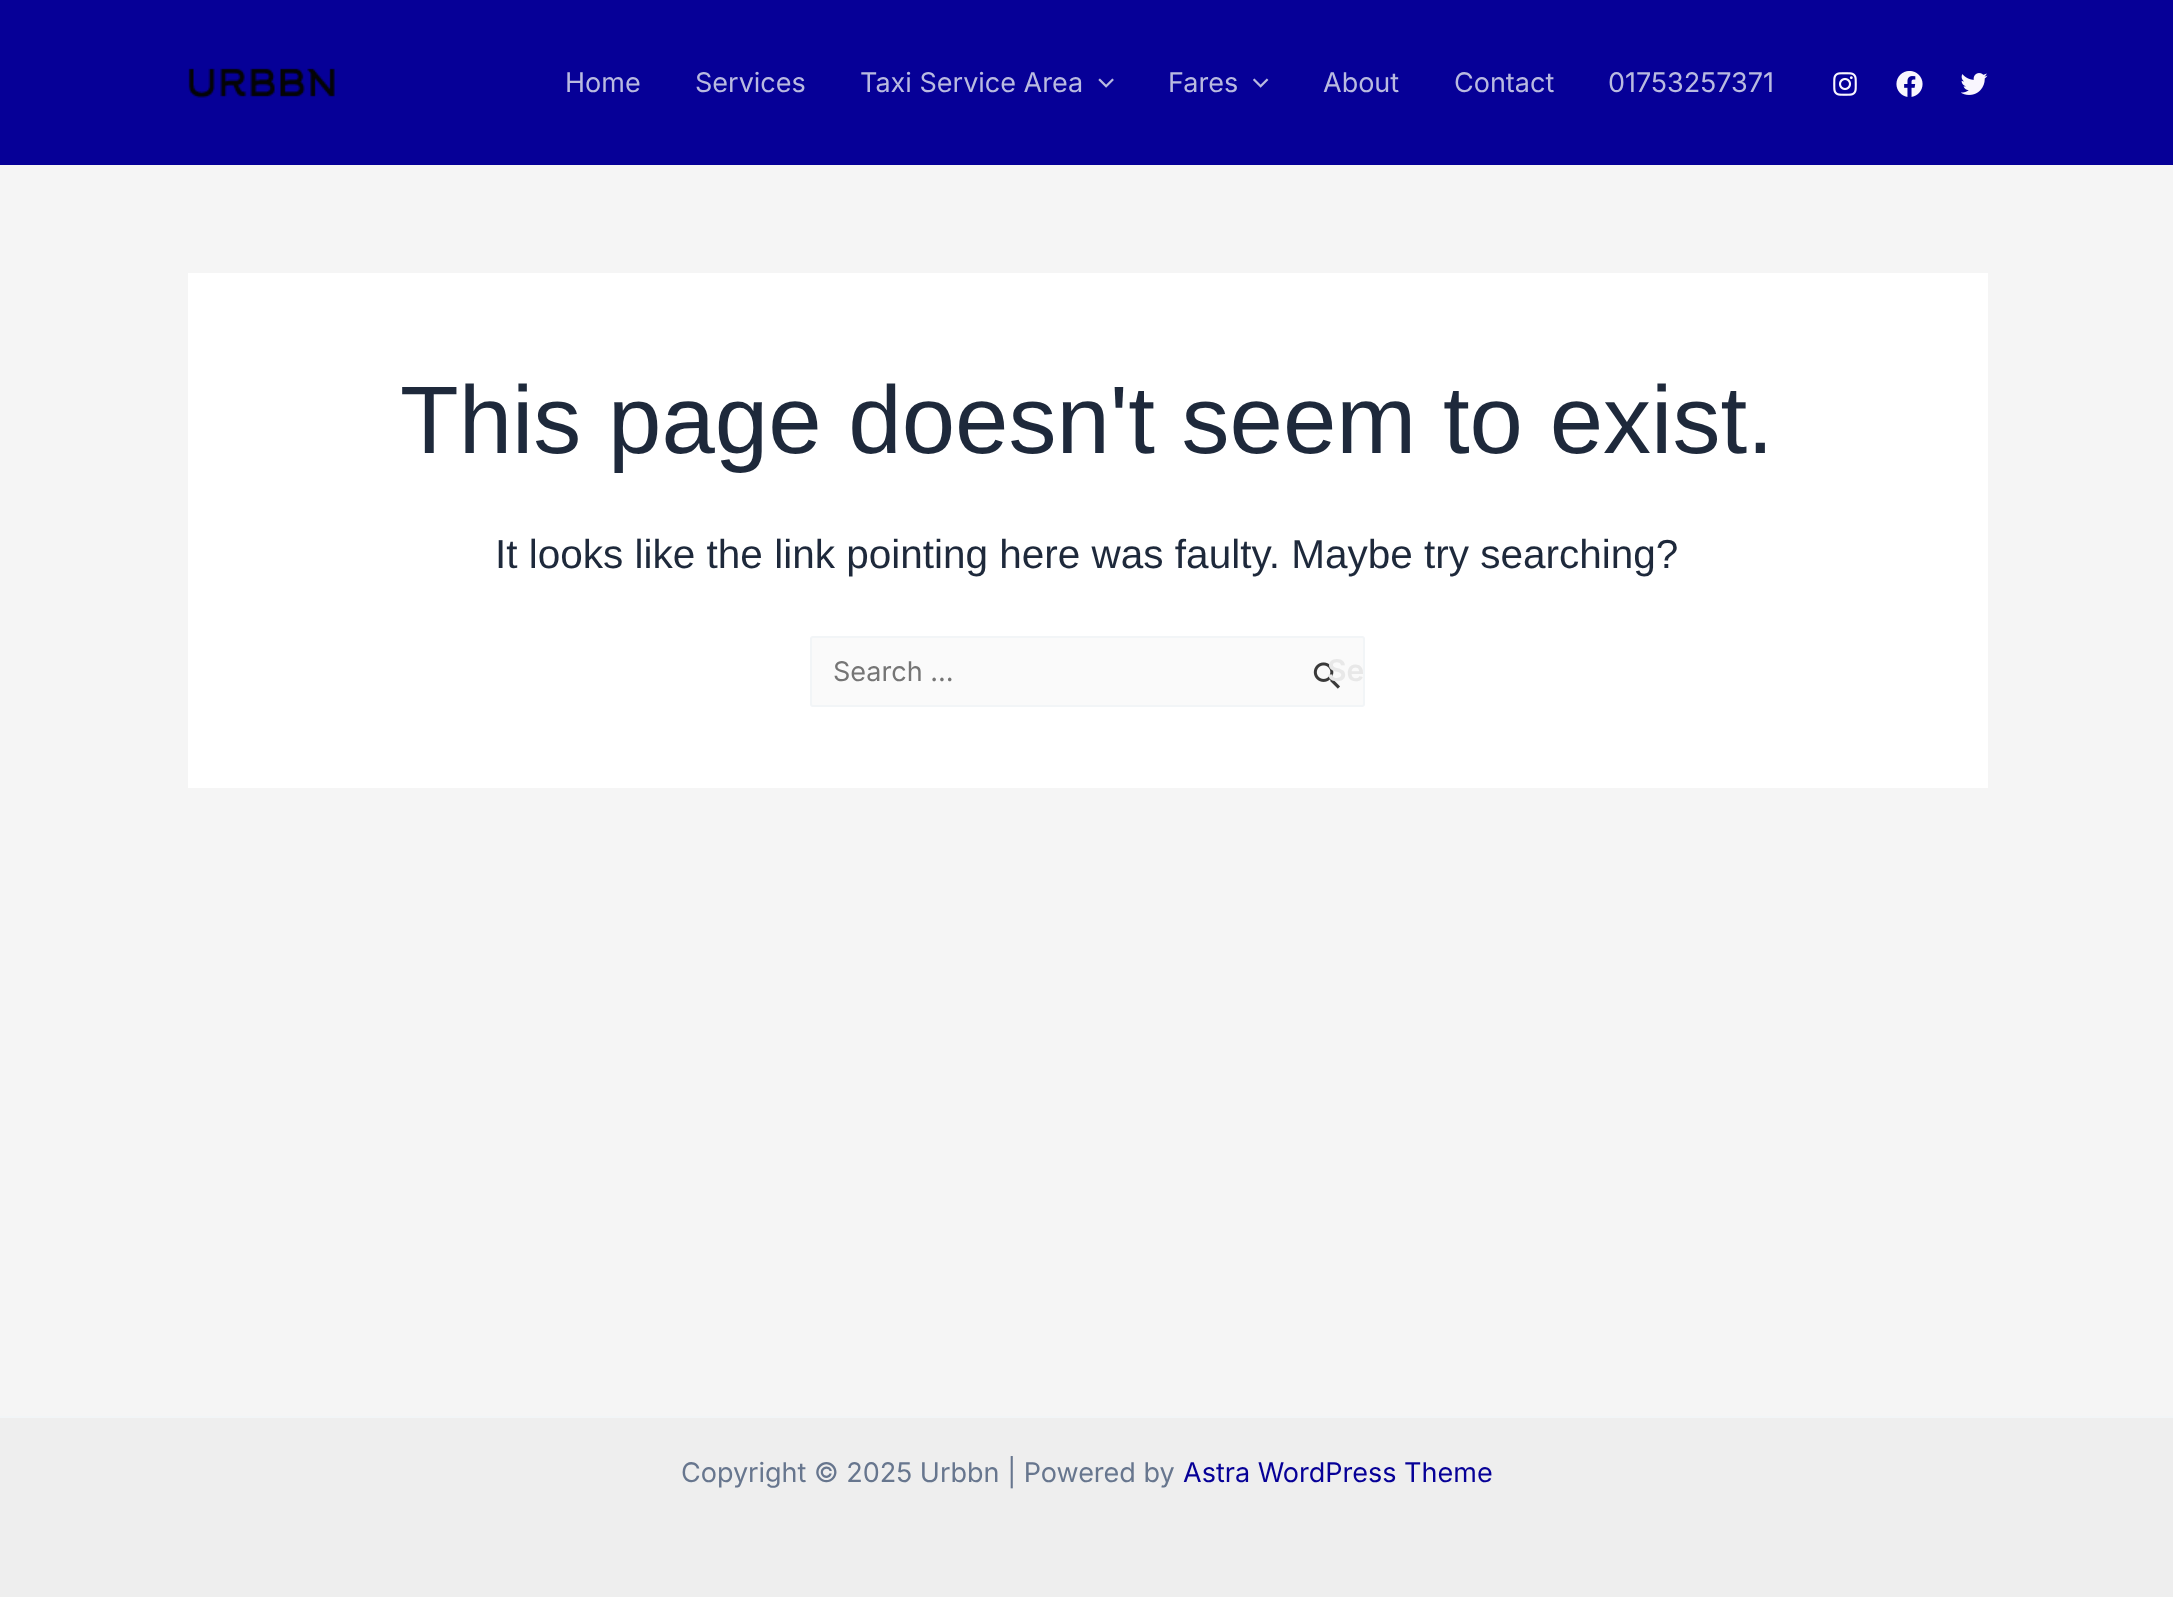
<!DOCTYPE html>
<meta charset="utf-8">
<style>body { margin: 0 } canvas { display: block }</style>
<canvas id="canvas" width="2173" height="1597"></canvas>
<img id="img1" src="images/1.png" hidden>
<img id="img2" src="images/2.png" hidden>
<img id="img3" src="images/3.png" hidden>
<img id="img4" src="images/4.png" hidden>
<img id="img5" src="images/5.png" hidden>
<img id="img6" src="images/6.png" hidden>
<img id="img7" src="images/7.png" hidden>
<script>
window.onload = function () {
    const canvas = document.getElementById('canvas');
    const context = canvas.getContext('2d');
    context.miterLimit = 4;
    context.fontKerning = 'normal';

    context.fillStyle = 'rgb(245, 245, 245)';
    context.fillRect(0, 0, 2173, 1597);
    context.fillStyle = 'rgb(6, 0, 151)';
    context.fillRect(0, 0, 2173, 165);
    context.drawImage(document.getElementById('img1'), 188, 68, 147, 30);
    context.drawImage(document.getElementById('img2'), 1098, 78, 16, 10);
    context.drawImage(document.getElementById('img3'), 1253, 78, 16, 10);
    context.drawImage(document.getElementById('img4'), 1833, 72, 24, 24);
    context.drawImage(document.getElementById('img5'), 1896, 71, 27, 26);
    context.drawImage(document.getElementById('img6'), 1961, 73, 27, 22);
    context.fillStyle = 'rgb(255, 255, 255)';
    context.fillRect(188, 273, 1800, 515);
    context.fillStyle = 'rgb(250, 250, 250)';
    context.beginPath();
    context.roundRect(811, 637, 553, 69, 2);
    context.fill();
    context.strokeStyle = 'rgb(242, 245, 247)';
    context.lineWidth = 2;
    context.stroke();
    context.drawImage(document.getElementById('img7'), 1313, 662, 27, 27);
    context.fillStyle = 'rgb(238, 238, 238)';
    context.fillRect(0, 1418, 2173, 179);
    context.fillStyle = 'rgb(242, 245, 247)';
    context.fillRect(0, 1416, 2173, 2);
    context.font = '27px Inter';
    context.fillStyle = 'rgb(185, 186, 224)';
    context.fillText('Home', 565, 92);
    context.fillText('Services', 695, 92);
    context.fillText('Taxi Service Area', 860, 92);
    context.fillText('Fares', 1168, 92);
    context.fillText('About', 1323, 92);
    context.fillText('Contact', 1454, 92);
    context.fillText('01753257371', 1608, 92);
    context.font = '96px Liberation Sans';
    context.fillStyle = 'rgb(30, 41, 59)';
    context.fillText('This page doesn\'t seem to exist.', 400, 453);
    context.font = '40.5px Liberation Sans';
    context.fillText('It looks like the link pointing here was faulty. Maybe try searching?', 495, 568);
    context.font = '27px Inter';
    context.fillStyle = 'rgb(117, 117, 117)';
    context.fillText('Search …', 833, 681);
    context.font = '600 30px Inter';
    context.fillStyle = 'rgb(232, 232, 232)';
    context.fillText('Se', 1327, 681);
    context.font = '27px Inter';
    context.fillStyle = 'rgb(103, 118, 142)';
    context.fillText('Copyright © 2025 Urbbn | Powered by', 681, 1482);
    context.fillStyle = 'rgb(6, 0, 151)';
    context.fillText('Astra WordPress Theme', 1183, 1482);
};
</script>
